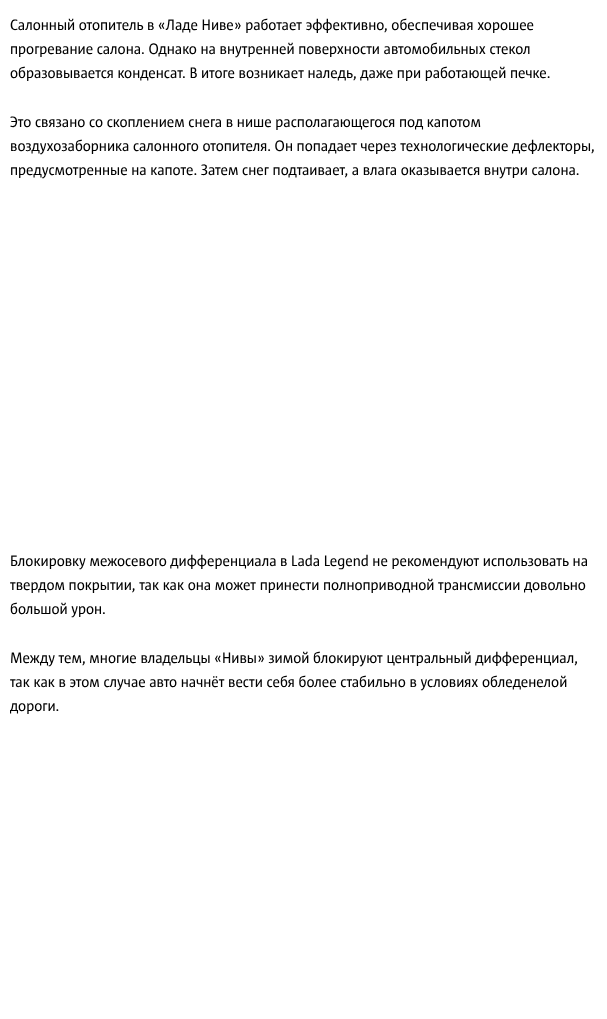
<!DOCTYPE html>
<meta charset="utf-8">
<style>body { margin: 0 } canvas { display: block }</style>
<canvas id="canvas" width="607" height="1019"></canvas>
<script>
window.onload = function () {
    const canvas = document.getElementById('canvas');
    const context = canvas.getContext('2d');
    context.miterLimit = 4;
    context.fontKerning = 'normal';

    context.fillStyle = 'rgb(255, 255, 255)';
    context.fillRect(0, 0, 607, 1019);
    context.font = '15px "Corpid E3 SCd"';
    context.fillStyle = 'rgb(0, 0, 0)';
    context.fillText('Салонный отопитель в «Ладе Ниве» работает эффективно, обеспечивая хорошее', 10, 30);
    context.fillText('прогревание салона. Однако на внутренней поверхности автомобильных стекол', 10, 54);
    context.fillText('образовывается конденсат. В итоге возникает наледь, даже при работающей печке.', 10, 78);
    context.fillText('Это связано со скоплением снега в нише располагающегося под капотом', 10, 127);
    context.fillText('воздухозаборника салонного отопителя. Он попадает через технологические дефлекторы,', 10, 151);
    context.fillText('предусмотренные на капоте. Затем снег подтаивает, а влага оказывается внутри салона.', 10, 175);
    context.fillText('Блокировку межосевого дифференциала в Lada Legend не рекомендуют использовать на', 10, 566);
    context.fillText('твердом покрытии, так как она может принести полноприводной трансмиссии довольно', 10, 590);
    context.fillText('большой урон.', 10, 614);
    context.fillText('Между тем, многие владельцы «Нивы» зимой блокируют центральный дифференциал,', 10, 663);
    context.fillText('так как в этом случае авто начнёт вести себя более стабильно в условиях обледенелой', 10, 687);
    context.fillText('дороги.', 10, 711);
};
</script>
